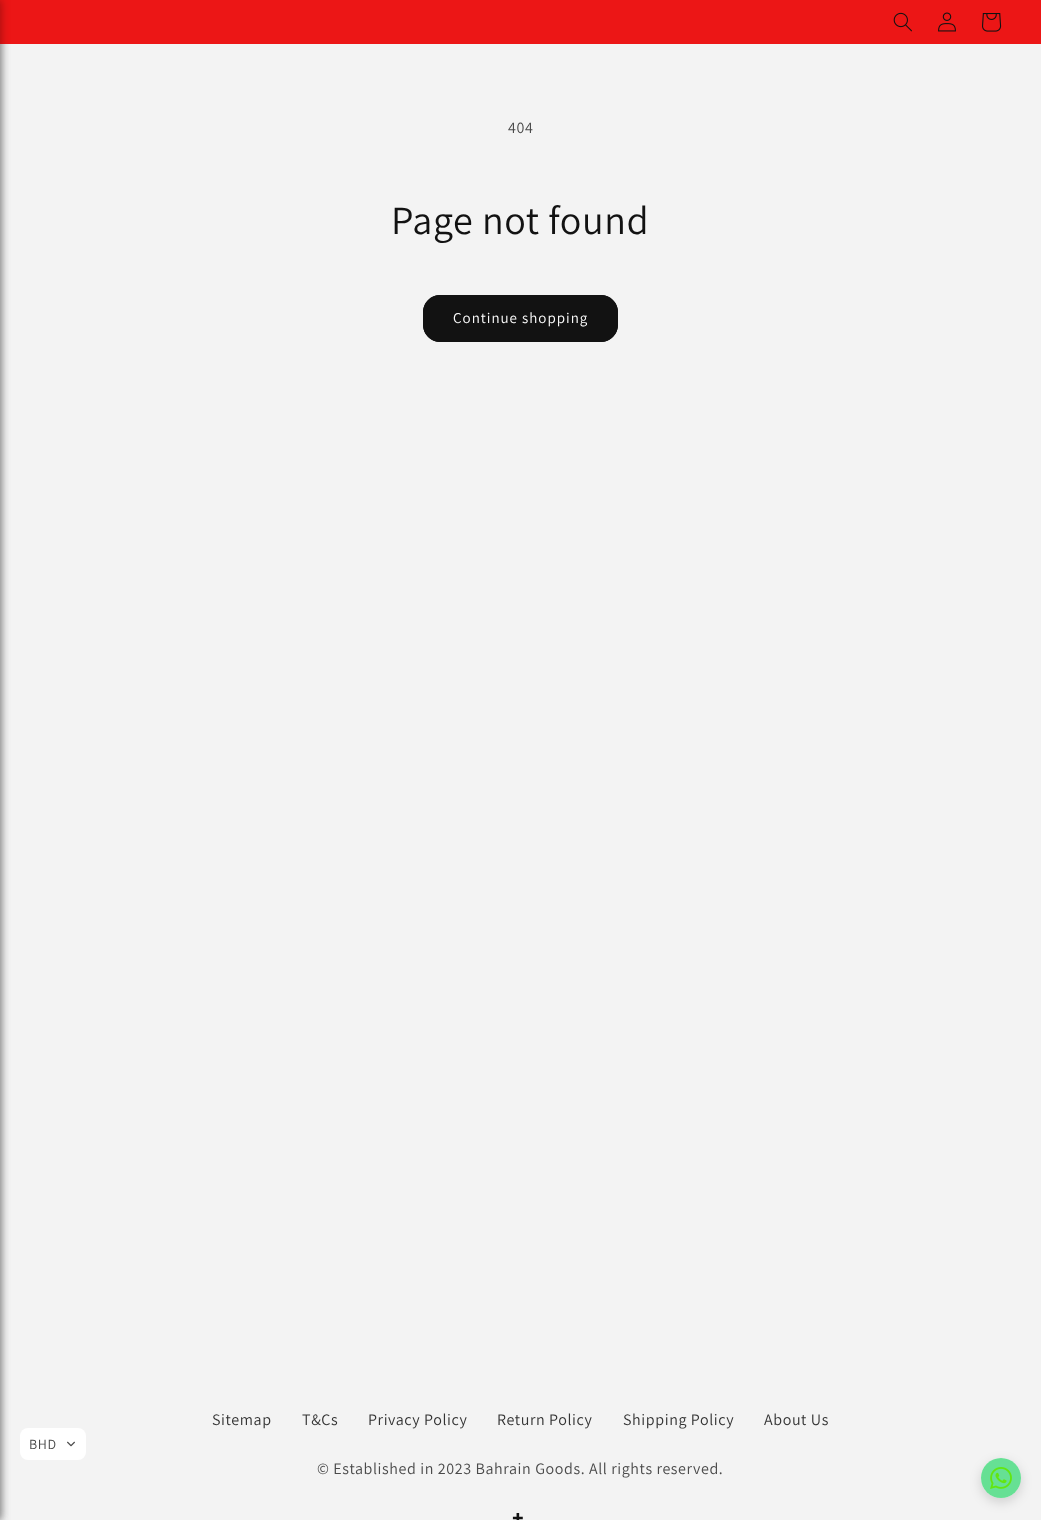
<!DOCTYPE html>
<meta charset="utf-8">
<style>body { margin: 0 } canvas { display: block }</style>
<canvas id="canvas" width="1041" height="1520"></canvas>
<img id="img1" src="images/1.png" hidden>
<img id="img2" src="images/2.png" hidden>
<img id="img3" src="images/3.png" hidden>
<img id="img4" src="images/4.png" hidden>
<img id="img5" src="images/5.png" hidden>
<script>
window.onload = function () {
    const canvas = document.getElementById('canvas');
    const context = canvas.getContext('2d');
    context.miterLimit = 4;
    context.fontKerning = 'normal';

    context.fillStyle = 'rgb(243, 243, 243)';
    context.fillRect(0, 0, 1041, 1520);
    context.fillStyle = 'rgba(0, 0, 0, 0.3)';
    context.filter = 'blur(4px)';
    context.beginPath();
    context.rect(-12, 0, 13, 1520);
    context.fill();
    context.filter = 'none';
    context.fillStyle = 'rgb(236, 22, 22)';
    context.fillRect(0, 0, 1041, 44);
    context.drawImage(document.getElementById('img1'), 893, 12, 19, 20);
    context.drawImage(document.getElementById('img2'), 938, 12, 18, 20);
    context.drawImage(document.getElementById('img3'), 982, 13, 20, 19);
    context.fillStyle = 'rgb(18, 18, 18)';
    context.beginPath();
    context.roundRect(423, 295, 195, 47, 17);
    context.fill();
    context.beginPath();
    context.roundRect(423.5, 295.5, 194, 46, 16.5);
    context.strokeStyle = 'rgb(18, 18, 18)';
    context.stroke();
    context.fillStyle = 'rgb(255, 255, 255)';
    context.beginPath();
    context.roundRect(20, 1428, 66, 32, 8);
    context.fill();
    context.drawImage(document.getElementById('img4'), 67, 1441, 8, 6);
    context.fillStyle = 'rgba(0, 0, 0, 0.3)';
    context.filter = 'blur(4px)';
    context.beginPath();
    context.rect(-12, 0, 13, 1520);
    context.fill();
    context.filter = 'none';
    context.fillStyle = 'rgba(0, 0, 0, 0.15)';
    context.filter = 'blur(6px)';
    context.beginPath();
    context.roundRect(981, 1462, 40, 40, 20);
    context.fill();
    context.filter = 'none';
    context.fillStyle = 'rgb(255, 255, 255)';
    context.beginPath();
    context.arc(1001, 1478, 20, 0, 2 * Math.PI);
    context.fill();
    context.fillStyle = 'rgba(37, 211, 102, 0.7)';
    context.beginPath();
    context.arc(1001, 1478, 20, 0, 2 * Math.PI);
    context.fill();
    context.drawImage(document.getElementById('img5'), 990, 1467, 22, 22);
    context.letterSpacing = '0.6px';
    context.font = '16px Assistant';
    context.fillStyle = 'rgb(74, 74, 74)';
    context.fillText('404', 508, 133);
    context.font = '40px Assistant';
    context.fillStyle = 'rgb(18, 18, 18)';
    context.fillText('Page not found', 391, 234);
    context.letterSpacing = '1px';
    context.font = '15px Assistant';
    context.fillStyle = 'rgb(255, 255, 255)';
    context.fillText('Continue shopping', 453, 323);
    context.letterSpacing = '0.6px';
    context.font = '14px Assistant';
    context.fillStyle = 'rgb(74, 74, 74)';
    context.fillText('BHD', 29, 1449);
    context.font = '16px Assistant';
    context.fillStyle = 'rgb(51, 51, 51)';
    context.fillText('Sitemap', 212, 1425);
    context.fillText('T&Cs', 302, 1425);
    context.fillText('Privacy Policy', 368, 1425);
    context.fillText('Return Policy', 497, 1425);
    context.fillText('Shipping Policy', 623, 1425);
    context.fillText('About Us', 764, 1425);
    context.fillStyle = 'rgb(74, 74, 74)';
    context.fillText('© Established in 2023 Bahrain Goods. All rights reserved.', 317, 1474);
    context.letterSpacing = '0px';
    context.font = '900 20px Noto Sans';
    context.fillStyle = 'rgb(18, 18, 18)';
    context.fillText('+', 512, 1525);
};
</script>
